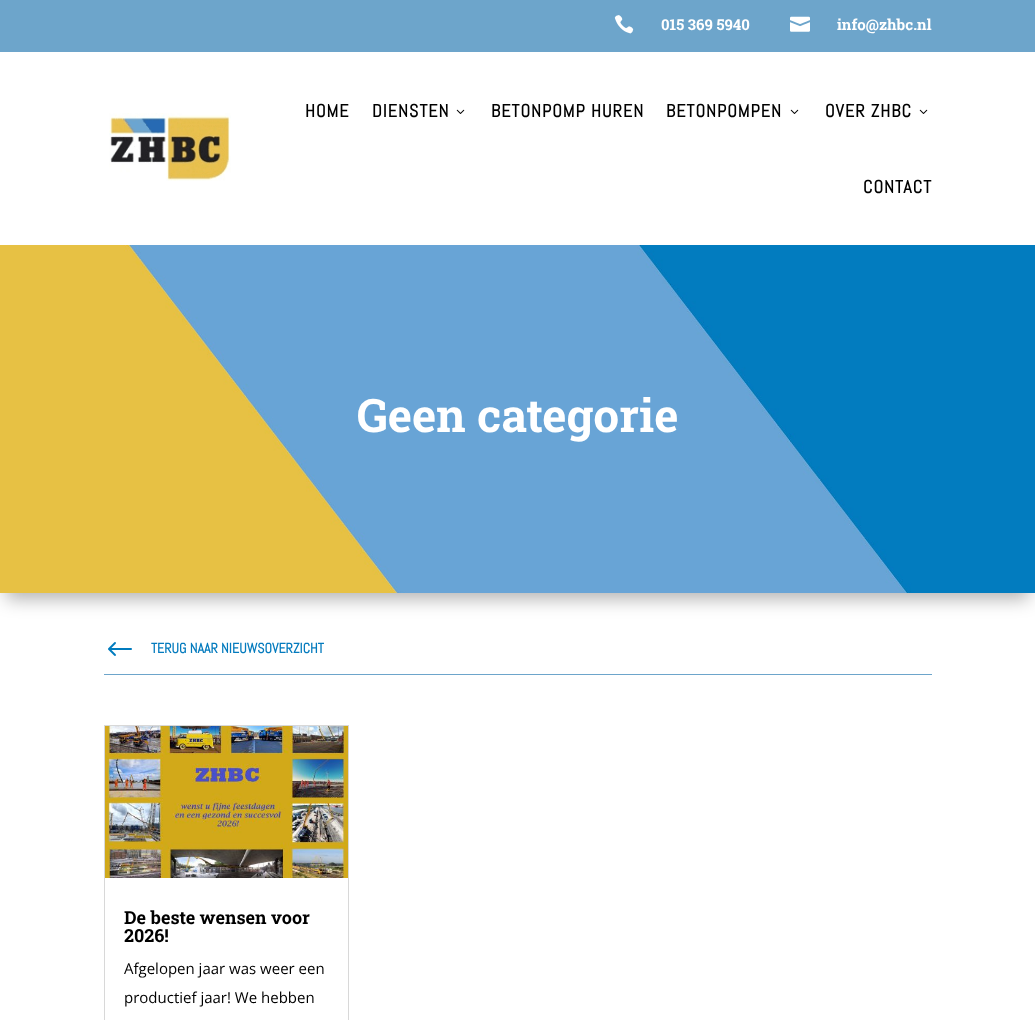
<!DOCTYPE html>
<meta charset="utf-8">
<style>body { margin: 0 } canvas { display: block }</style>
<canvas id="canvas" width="1035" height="1020"></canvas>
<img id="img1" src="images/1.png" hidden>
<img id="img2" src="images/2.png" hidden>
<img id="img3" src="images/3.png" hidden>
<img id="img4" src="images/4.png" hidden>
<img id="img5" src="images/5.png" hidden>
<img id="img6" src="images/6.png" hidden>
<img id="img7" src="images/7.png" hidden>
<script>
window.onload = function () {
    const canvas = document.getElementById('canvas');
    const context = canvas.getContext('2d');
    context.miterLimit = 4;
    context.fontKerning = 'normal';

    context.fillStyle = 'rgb(255, 255, 255)';
    context.fillRect(0, 0, 1035, 1020);
    context.fillStyle = 'rgb(109, 165, 203)';
    context.fillRect(0, 0, 1035, 52);
    context.drawImage(document.getElementById('img1'), 614, 15, 20, 19);
    context.drawImage(document.getElementById('img2'), 790, 16, 20, 16);
    context.drawImage(document.getElementById('img3'), 109, 113, 122, 68);
    context.drawImage(document.getElementById('img4'), 456, 109, 9, 5);
    context.drawImage(document.getElementById('img4'), 790, 109, 9, 5);
    context.drawImage(document.getElementById('img4'), 919, 109, 9, 5);
    context.fillStyle = 'rgba(0, 0, 0, 0.3)';
    context.filter = 'blur(9px)';
    context.beginPath();
    context.rect(6, 263, 1023, 336);
    context.fill();
    context.filter = 'none';
    context.drawImage(document.getElementById('img5'), 0, 245, 1035, 348);
    context.fillStyle = 'rgb(109, 165, 203)';
    context.fillRect(104, 674, 828, 1);
    context.drawImage(document.getElementById('img6'), 108, 642, 24, 14);
    context.strokeStyle = 'rgb(216, 216, 216)';
    context.strokeRect(104.5, 725.5, 244, 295);
    context.drawImage(document.getElementById('img7'), 105, 726, 243, 152);
    context.font = 'bold 15px Roboto Slab';
    context.fillStyle = 'rgb(255, 255, 255)';
    context.fillText('015 369 5940', 661, 30);
    context.fillText('info@zhbc.nl', 837, 30);
    context.letterSpacing = '1px';
    context.font = 'bold 18px Abel';
    context.fillStyle = 'rgb(0, 0, 0)';
    context.fillText('HOME', 305, 117);
    context.fillText('DIENSTEN', 372, 117);
    context.fillText('BETONPOMP HUREN', 491, 117);
    context.fillText('BETONPOMPEN', 666, 117);
    context.fillText('OVER ZHBC', 825, 117);
    context.fillText('CONTACT', 863, 193);
    context.letterSpacing = '0px';
    context.font = 'bold 46px Roboto Slab';
    context.fillStyle = 'rgb(255, 255, 255)';
    context.fillText('Geen categorie', 357, 432);
    context.font = 'bold 14px Abel';
    context.fillStyle = 'rgb(4, 123, 190)';
    context.fillText('TERUG NAAR NIEUWSOVERZICHT', 151, 653);
    context.font = 'bold 18px Roboto Slab';
    context.fillStyle = 'rgb(0, 0, 0)';
    context.fillText('De beste wensen voor', 124, 924);
    context.fillText('2026!', 124, 942);
    context.font = '15px Open Sans';
    context.fillText('Afgelopen jaar was weer een', 124, 974);
    context.fillText('productief jaar! We hebben', 124, 1003);
};
</script>
